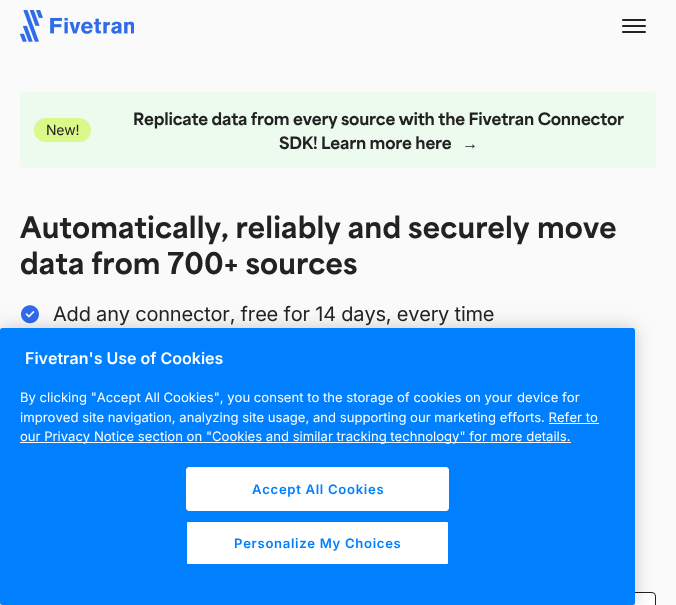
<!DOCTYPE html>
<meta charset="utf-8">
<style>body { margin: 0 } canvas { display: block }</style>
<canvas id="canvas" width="676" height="605"></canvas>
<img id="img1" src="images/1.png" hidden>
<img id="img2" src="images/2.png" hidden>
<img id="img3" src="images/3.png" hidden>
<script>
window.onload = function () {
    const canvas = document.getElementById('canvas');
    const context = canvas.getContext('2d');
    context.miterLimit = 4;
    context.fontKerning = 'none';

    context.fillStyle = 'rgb(250, 250, 250)';
    context.fillRect(0, 0, 676, 605);
    context.drawImage(document.getElementById('img1'), 20, 10, 114, 32);
    context.drawImage(document.getElementById('img2'), 622, 19, 24, 14);
    context.fillStyle = 'rgb(237, 250, 238)';
    context.beginPath();
    context.roundRect(20, 92, 636, 76, 4);
    context.fill();
    context.fillStyle = 'rgb(218, 249, 138)';
    context.beginPath();
    context.roundRect(34, 118, 57, 24, 12);
    context.fill();
    context.drawImage(document.getElementById('img3'), 21, 305, 18, 19);
    context.fillStyle = 'rgb(255, 255, 255)';
    context.beginPath();
    context.roundRect(20.5, 592.5, 635, 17, 3.5);
    context.fill();
    context.strokeStyle = 'rgb(34, 34, 34)';
    context.stroke();
    context.fillStyle = 'rgba(0, 0, 0, 0.2)';
    context.filter = 'blur(9px)';
    context.beginPath();
    context.roundRect(0, 328, 635, 277, 2.5);
    context.fill();
    context.filter = 'none';
    context.fillStyle = 'rgb(0, 127, 255)';
    context.beginPath();
    context.roundRect(0, 328, 635, 277, 2.5);
    context.fill();
    context.fillStyle = 'rgb(255, 255, 255)';
    context.fillRect(549, 423, 50, 1);
    context.fillRect(20, 442, 551, 1);
    context.beginPath();
    context.roundRect(186.5, 467.5, 262, 43, 2.5);
    context.fill();
    context.strokeStyle = 'rgb(255, 255, 255)';
    context.stroke();
    context.beginPath();
    context.roundRect(186.5, 521.5, 262, 43, 1.5);
    context.fill();
    context.strokeStyle = 'rgb(0, 127, 255)';
    context.stroke();
    context.letterSpacing = '-0.2px';
    context.font = '14px Inter';
    context.fillStyle = 'rgb(34, 34, 34)';
    context.fillText('New!', 46, 135);
    context.font = '800 16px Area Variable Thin';
    context.fillText('Replicate data from every source with the Fivetran Connector', 133, 125);
    context.fillText('SDK! Learn more here', 279, 149);
    context.font = 'bold 16px Liberation Sans';
    context.fillText('→', 462, 149);
    context.letterSpacing = '0.15px';
    context.font = '800 28px Area Variable Thin';
    context.fillText('Automatically, reliably and securely', 20, 238);
    context.fillText('move', 537, 238);
    context.fillText('data from 700+ sources', 20, 274);
    context.letterSpacing = '-0.2px';
    context.font = '20px Inter';
    context.fillText('Add any connector, free for 14 days, every time', 53, 321);
    context.letterSpacing = '0px';
    context.font = '600 16px Inter';
    context.fillStyle = 'rgb(255, 255, 255)';
    context.fillText('Fivetran\'s Use of Cookies', 25, 364);
    context.font = '13.1px Inter';
    context.fillText('By clicking "Accept All Cookies", you consent to the storage of cookies on your', 20, 402);
    context.fillText('device for', 517, 402);
    context.fillText('improved site navigation, analyzing site usage, and supporting our marketing efforts. Refer to', 20, 422);
    context.fillText('our Privacy Notice section on "Cookies and similar tracking technology" for more details.', 20, 441);
    context.letterSpacing = '0.7px';
    context.font = '600 13.1px Inter';
    context.fillStyle = 'rgb(0, 127, 255)';
    context.fillText('Accept All Cookies', 252, 494);
    context.fillText('Personalize My Choices', 234, 548);
};
</script>
